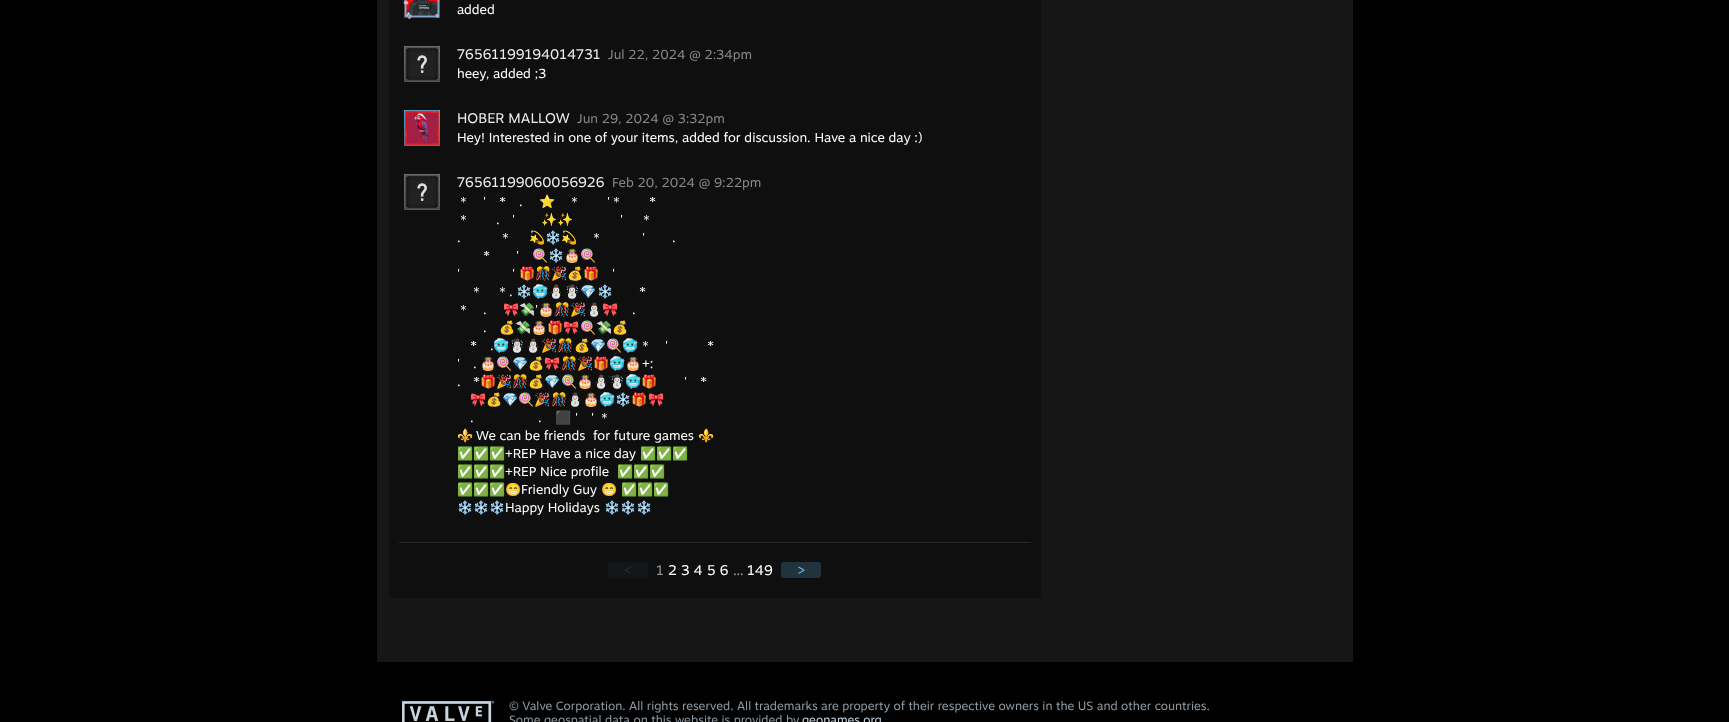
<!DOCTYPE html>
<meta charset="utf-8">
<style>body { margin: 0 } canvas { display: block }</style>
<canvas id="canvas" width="1729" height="722"></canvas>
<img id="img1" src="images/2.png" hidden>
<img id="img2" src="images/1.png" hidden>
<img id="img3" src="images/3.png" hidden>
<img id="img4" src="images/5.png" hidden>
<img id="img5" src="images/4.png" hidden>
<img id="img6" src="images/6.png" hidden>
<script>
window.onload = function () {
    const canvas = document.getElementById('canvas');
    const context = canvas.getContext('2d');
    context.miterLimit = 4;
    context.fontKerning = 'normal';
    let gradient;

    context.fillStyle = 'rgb(0, 0, 0)';
    context.fillRect(0, 0, 1729, 722);
    context.fillStyle = 'rgb(22, 22, 22)';
    context.fillRect(377, 0, 976, 662);
    context.fillStyle = 'rgb(15, 15, 15)';
    context.beginPath();
    context.roundRect(389, -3, 652, 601, 3);
    context.fill();
    gradient = context.createLinearGradient(422, -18, 422, 18);
    gradient.addColorStop(0.05, 'rgb(106, 106, 106)');
    gradient.addColorStop(0.95, 'rgb(85, 85, 85)');
    context.fillStyle = gradient;
    context.fillRect(404, 0, 36, 18);
    context.drawImage(document.getElementById('img1'), 406, 0, 32, 16);
    context.drawImage(document.getElementById('img2'), 403, 0, 37, 19);
    gradient = context.createLinearGradient(422, 46, 422, 82);
    gradient.addColorStop(0.05, 'rgb(106, 106, 106)');
    gradient.addColorStop(0.95, 'rgb(85, 85, 85)');
    context.fillStyle = gradient;
    context.fillRect(404, 46, 36, 36);
    gradient = context.createLinearGradient(422, 47, 422, 81);
    gradient.addColorStop(0.05, 'rgb(81, 81, 81)');
    gradient.addColorStop(0.95, 'rgb(71, 71, 71)');
    context.fillStyle = gradient;
    context.fillRect(405, 47, 34, 34);
    context.drawImage(document.getElementById('img3'), 406, 48, 32, 32);
    gradient = context.createLinearGradient(422, 110, 422, 146);
    gradient.addColorStop(0.05, 'rgb(83, 164, 196)');
    gradient.addColorStop(0.95, 'rgb(69, 128, 151)');
    context.fillStyle = gradient;
    context.fillRect(404, 110, 36, 36);
    gradient = context.createLinearGradient(422, 111, 422, 145);
    gradient.addColorStop(0.05, 'rgb(65, 119, 143)');
    gradient.addColorStop(0.95, 'rgb(61, 105, 123)');
    context.fillStyle = gradient;
    context.fillRect(405, 111, 34, 34);
    context.drawImage(document.getElementById('img4'), 406, 112, 32, 32);
    context.drawImage(document.getElementById('img5'), 404, 110, 36, 36);
    gradient = context.createLinearGradient(422, 174, 422, 210);
    gradient.addColorStop(0.05, 'rgb(106, 106, 106)');
    gradient.addColorStop(0.95, 'rgb(85, 85, 85)');
    context.fillStyle = gradient;
    context.fillRect(404, 174, 36, 36);
    gradient = context.createLinearGradient(422, 175, 422, 209);
    gradient.addColorStop(0.05, 'rgb(81, 81, 81)');
    gradient.addColorStop(0.95, 'rgb(71, 71, 71)');
    context.fillStyle = gradient;
    context.fillRect(405, 175, 34, 34);
    context.drawImage(document.getElementById('img3'), 406, 176, 32, 32);
    context.fillStyle = 'rgb(39, 39, 39)';
    context.fillRect(399, 542, 632, 1);
    context.fillStyle = 'rgb(19, 22, 24)';
    context.beginPath();
    context.roundRect(608, 562, 40, 16, 3);
    context.fill();
    context.fillStyle = 'rgb(33, 51, 61)';
    context.beginPath();
    context.roundRect(781, 562, 40, 16, 3);
    context.fill();
    context.drawImage(document.getElementById('img6'), 402, 701, 92, 21);
    context.font = '13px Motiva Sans';
    context.fillStyle = 'rgb(255, 255, 255)';
    context.fillText('added', 457, 14);
    context.font = '14px Motiva Sans';
    context.fillStyle = 'rgb(235, 235, 235)';
    context.fillText('76561199194014731', 457, 59);
    context.font = '13px Motiva Sans';
    context.fillStyle = 'rgb(135, 135, 135)';
    context.fillText('Jul 22, 2024 @ 2:34pm', 608, 59);
    context.fillStyle = 'rgb(255, 255, 255)';
    context.fillText('heey, added ;3', 457, 78);
    context.font = '14px Motiva Sans';
    context.fillStyle = 'rgb(235, 235, 235)';
    context.fillText('HOBER MALLOW', 457, 123);
    context.font = '13px Motiva Sans';
    context.fillStyle = 'rgb(135, 135, 135)';
    context.fillText('Jun 29, 2024 @ 3:32pm', 577, 123);
    context.fillStyle = 'rgb(255, 255, 255)';
    context.fillText('Hey! Interested in one of your items, added for discussion. Have a nice day :)', 457, 142);
    context.font = '14px Motiva Sans';
    context.fillStyle = 'rgb(235, 235, 235)';
    context.fillText('76561199060056926', 457, 187);
    context.font = '13px Motiva Sans';
    context.fillStyle = 'rgb(135, 135, 135)';
    context.fillText('Feb 20, 2024 @ 9:22pm', 612, 187);
    context.font = '500 13px WenQuanYi Zen Hei';
    context.fillStyle = 'rgb(255, 255, 255)';
    context.fillText('＊', 457, 206);
    context.font = '13px Motiva Sans';
    context.fillText('\'', 483, 206);
    context.fillText('*', 499, 206);
    context.font = '13px Noto Color Emoji';
    context.fillText('⭐️', 539, 206);
    context.font = '500 13px WenQuanYi Zen Hei';
    context.fillText('＊', 568, 206);
    context.font = '13px Motiva Sans';
    context.fillText('\'', 607, 206);
    context.font = '500 13px WenQuanYi Zen Hei';
    context.fillText('＊', 610, 206);
    context.font = '13px Motiva Sans';
    context.fillText('*', 649, 206);
    context.fillText('.', 519, 206);
    context.font = '500 13px WenQuanYi Zen Hei';
    context.fillText('＊', 457, 224);
    context.font = '13px Motiva Sans';
    context.fillText('\'', 512, 224);
    context.font = '13px Noto Color Emoji';
    context.fillText('✨✨', 541, 224);
    context.font = '13px Motiva Sans';
    context.fillText('\'', 620, 224);
    context.font = '500 13px WenQuanYi Zen Hei';
    context.fillText('＊', 640, 224);
    context.font = '13px Motiva Sans';
    context.fillText('.', 496, 224);
    context.font = '500 13px WenQuanYi Zen Hei';
    context.fillText('＊', 499, 242);
    context.font = '13px Noto Color Emoji';
    context.fillText('💫❄️💫', 529, 242);
    context.font = '500 13px WenQuanYi Zen Hei';
    context.fillText('＊', 590, 242);
    context.font = '13px Motiva Sans';
    context.fillText('\'', 642, 242);
    context.fillText('.', 457, 242);
    context.fillText('.', 672, 242);
    context.fillText('*', 483, 260);
    context.fillText('\'', 516, 260);
    context.font = '13px Noto Color Emoji';
    context.fillText('🍭❄️🎂🍭', 532, 260);
    context.font = '13px Motiva Sans';
    context.fillText('\'', 457, 278);
    context.fillText('\'', 512, 278);
    context.font = '13px Noto Color Emoji';
    context.fillText('🎁🎊🎉💰🎁', 519, 278);
    context.font = '13px Motiva Sans';
    context.fillText('\'', 612, 278);
    context.font = '500 13px WenQuanYi Zen Hei';
    context.fillText('＊　＊', 470, 296);
    context.font = '13px Noto Color Emoji';
    context.fillText('❄️🥶⛄️☃️💎❄️', 516, 296);
    context.font = '13px Motiva Sans';
    context.fillText('*', 639, 296);
    context.fillText('.', 509, 296);
    context.font = '500 13px WenQuanYi Zen Hei';
    context.fillText('＊', 457, 314);
    context.font = '13px Noto Color Emoji';
    context.fillText('🎀💸', 503, 314);
    context.font = '13px Motiva Sans';
    context.fillText('\'', 535, 314);
    context.font = '13px Noto Color Emoji';
    context.fillText('🎂🎊🎉⛄️🎀', 538, 314);
    context.font = '13px Motiva Sans';
    context.fillText('.', 483, 314);
    context.fillText('.', 632, 314);
    context.fillText('.', 483, 332);
    context.font = '13px Noto Color Emoji';
    context.fillText('💰💸🎂🎁🎀🍭💸💰', 499, 332);
    context.font = '13px Motiva Sans';
    context.fillText('*', 470, 350);
    context.font = '13px Noto Color Emoji';
    context.fillText('🥶☃️⛄️🎉🎊💰💎🍭🥶', 493, 350);
    context.font = '500 13px WenQuanYi Zen Hei';
    context.fillText('＊', 639, 350);
    context.font = '13px Motiva Sans';
    context.fillText('\'', 665, 350);
    context.fillText('*', 707, 350);
    context.fillText('.', 490, 350);
    context.fillText('\'', 457, 368);
    context.fillText('.', 473, 368);
    context.font = '13px Noto Color Emoji';
    context.fillText('🎂🍭💎💰🎀🎊🎉🎁🥶🎂', 480, 368);
    context.font = '13px Motiva Sans';
    context.fillText('+:', 642, 368);
    context.fillText('*', 473, 386);
    context.font = '13px Noto Color Emoji';
    context.fillText('🎁🎉🎊💰💎🍭🎂⛄️☃️🥶🎁', 480, 386);
    context.font = '13px Motiva Sans';
    context.fillText('\'', 684, 386);
    context.fillText('*', 700, 386);
    context.fillText('.', 457, 386);
    context.font = '13px Noto Color Emoji';
    context.fillText('🎀💰💎🍭🎉🎊⛄️🎂🥶❄️🎁🎀', 470, 404);
    context.fillText('⬛', 555, 422);
    context.font = '13px Motiva Sans';
    context.fillText('\'', 575, 422);
    context.fillText('\'', 591, 422);
    context.font = '500 13px WenQuanYi Zen Hei';
    context.fillText('＊', 598, 422);
    context.font = '13px Motiva Sans';
    context.fillText('.', 470, 422);
    context.fillText('.', 538, 422);
    context.save();
    context.beginPath();
    context.rect(457, 192, 574, 324);
    context.clip();
    context.font = '13px Noto Color Emoji';
    context.fillText('⚜️', 457, 440);
    context.restore();
    context.fillText('We can be friends  for future games', 476, 440);
    context.font = '13px Noto Color Emoji';
    context.fillText('⚜️', 698, 440);
    context.save();
    context.beginPath();
    context.rect(457, 192, 574, 324);
    context.clip();
    context.fillText('✅✅✅', 457, 458);
    context.restore();
    context.font = '13px Motiva Sans';
    context.fillText('+REP Have a nice day', 505, 458);
    context.font = '13px Noto Color Emoji';
    context.fillText('✅✅✅', 640, 458);
    context.save();
    context.beginPath();
    context.rect(457, 192, 574, 324);
    context.clip();
    context.fillText('✅✅✅', 457, 476);
    context.restore();
    context.font = '13px Motiva Sans';
    context.fillText('+REP Nice profile', 505, 476);
    context.font = '13px Noto Color Emoji';
    context.fillText('✅✅✅', 617, 476);
    context.save();
    context.beginPath();
    context.rect(457, 192, 574, 324);
    context.clip();
    context.fillText('✅✅✅😁', 457, 494);
    context.restore();
    context.font = '13px Motiva Sans';
    context.fillText('Friendly Guy', 521, 494);
    context.font = '13px Noto Color Emoji';
    context.fillText('😁', 601, 494);
    context.fillText('✅✅✅', 621, 494);
    context.save();
    context.beginPath();
    context.rect(457, 192, 574, 324);
    context.clip();
    context.fillText('❄️❄️❄️', 457, 512);
    context.restore();
    context.font = '13px Motiva Sans';
    context.fillText('Happy Holidays', 505, 512);
    context.font = '13px Noto Color Emoji';
    context.fillText('❄️❄️❄️', 604, 512);
    context.font = '14px Motiva Sans';
    context.fillStyle = 'rgb(32, 50, 61)';
    context.fillText('<', 624, 575);
    context.fillStyle = 'rgb(147, 147, 147)';
    context.fillText('1', 656, 575);
    context.fillStyle = 'rgb(255, 255, 255)';
    context.fillText('2 3 4 5 6', 668, 575);
    context.fillStyle = 'rgb(147, 147, 147)';
    context.fillText('...', 733, 575);
    context.fillStyle = 'rgb(255, 255, 255)';
    context.fillText('149', 747, 575);
    context.fillStyle = 'rgb(102, 192, 244)';
    context.fillText('>', 797, 575);
    context.font = '12px Motiva Sans';
    context.fillStyle = 'rgb(143, 152, 160)';
    context.fillText('© Valve Corporation. All rights reserved. All trademarks are property of their respective owners in the US and other countries.', 509, 710);
    context.fillText('Some geospatial data on this website is provided by', 509, 724);
    context.fillStyle = 'rgb(198, 212, 223)';
    context.fillText('geonames.org', 802, 724);
};
</script>
